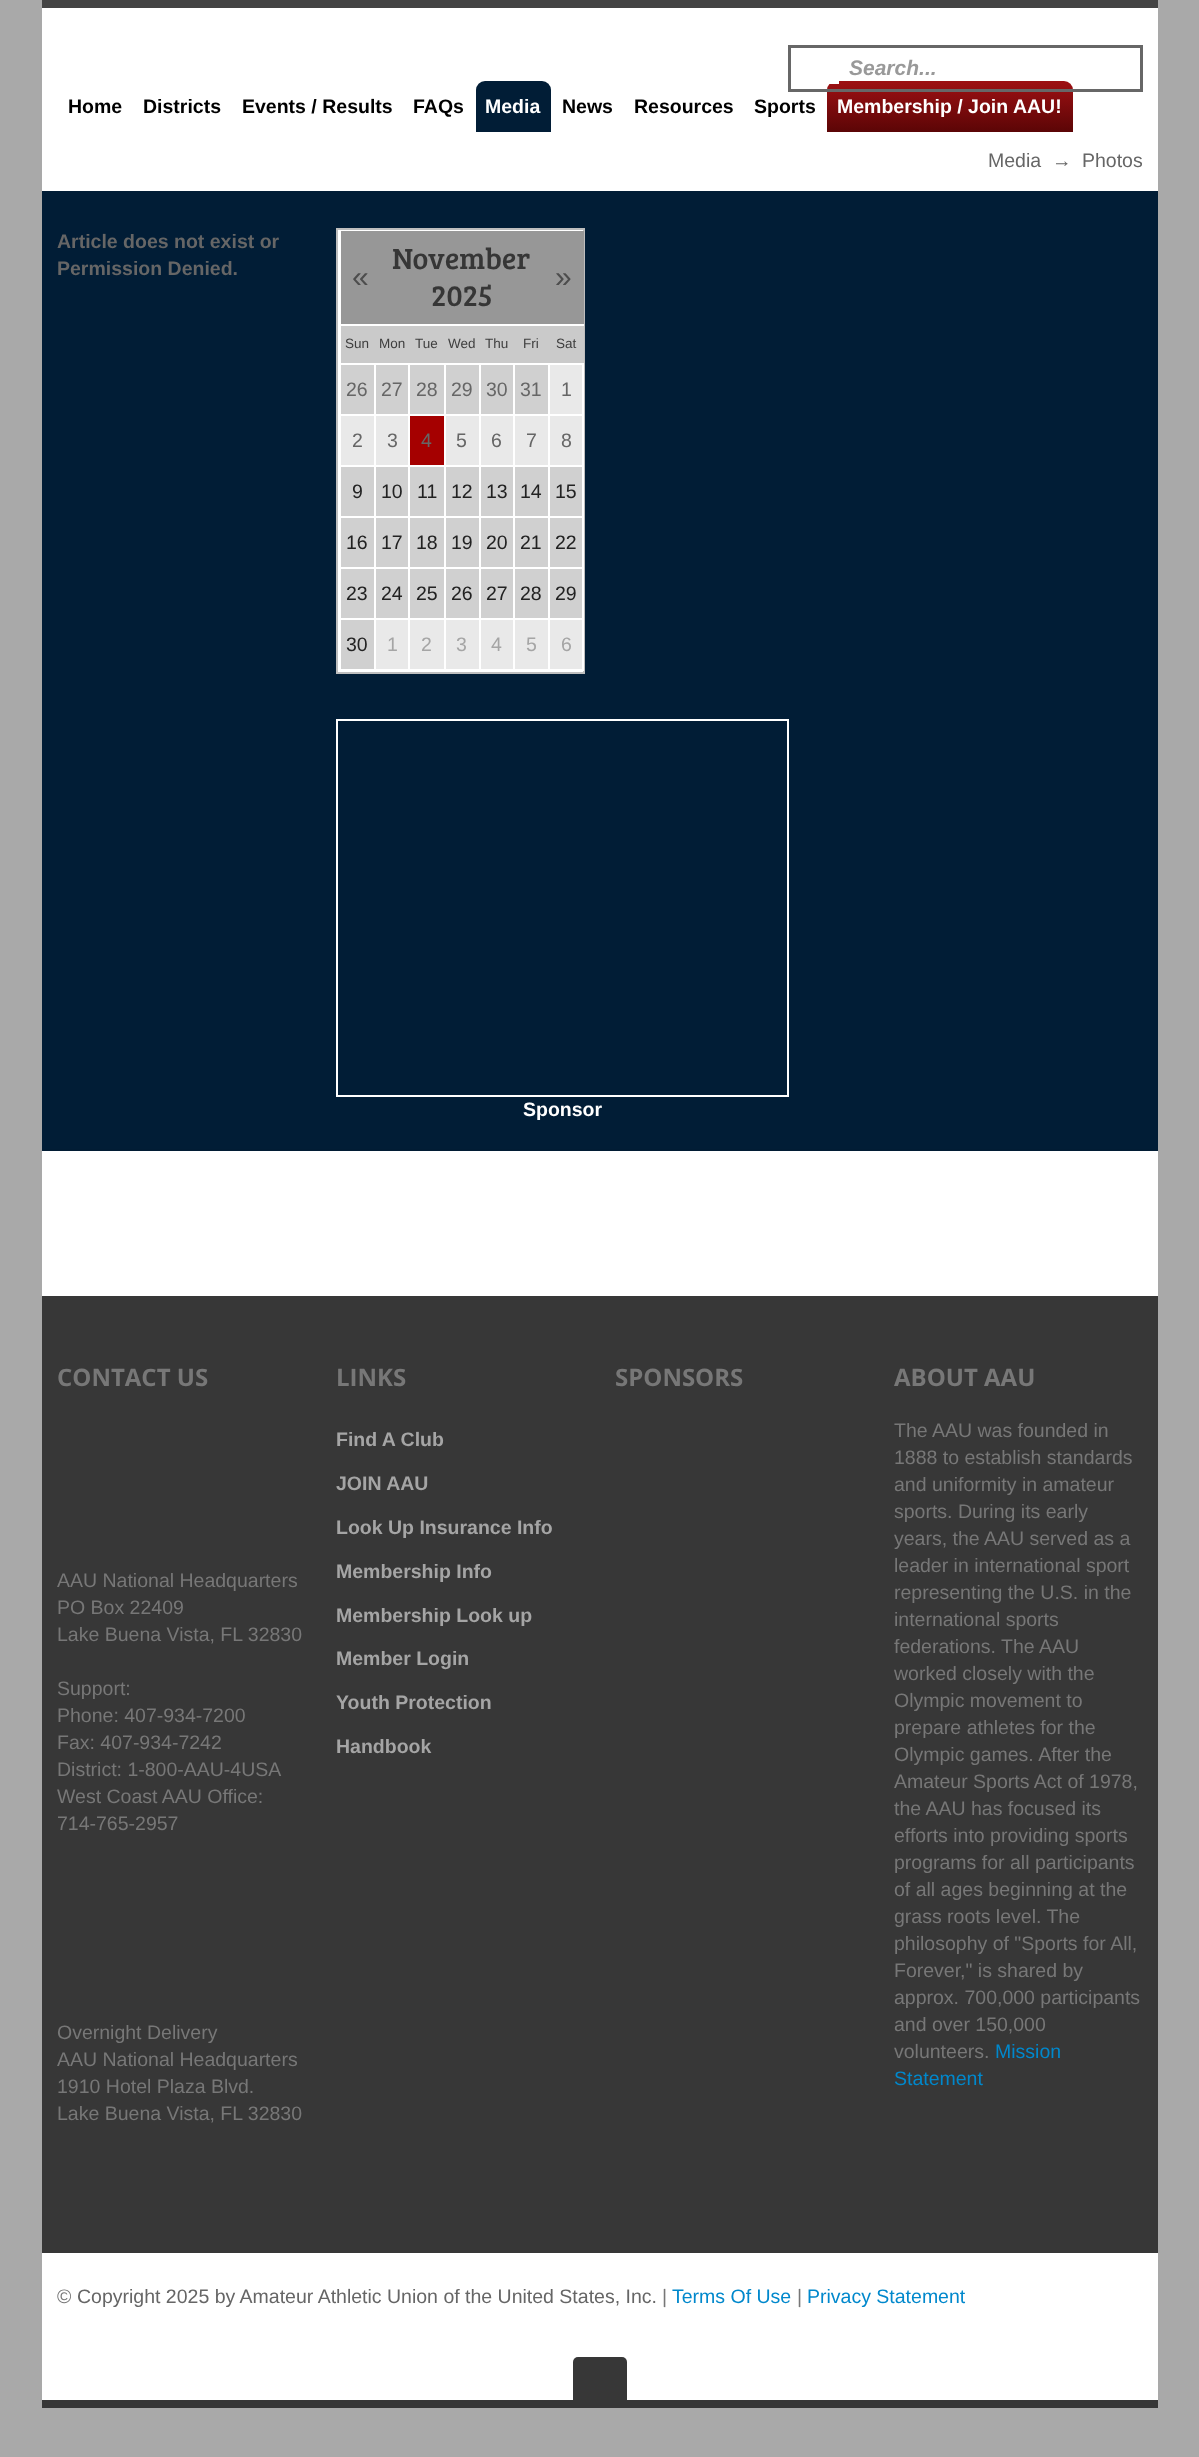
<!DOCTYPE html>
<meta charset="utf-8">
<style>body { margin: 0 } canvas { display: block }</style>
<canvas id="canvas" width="1199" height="2457"></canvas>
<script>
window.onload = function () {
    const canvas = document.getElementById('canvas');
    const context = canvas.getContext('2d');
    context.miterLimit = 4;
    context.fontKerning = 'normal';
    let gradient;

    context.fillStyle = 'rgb(169, 169, 169)';
    context.fillRect(0, 0, 1199, 2457);
    context.fillStyle = 'rgb(68, 68, 68)';
    context.fillRect(42, 0, 1116, 8);
    context.fillStyle = 'rgb(255, 255, 255)';
    context.fillRect(42, 8, 1116, 1288);
    gradient = context.createLinearGradient(950, 81, 950, 132);
    gradient.addColorStop(0.05, 'rgb(155, 16, 18)');
    gradient.addColorStop(1, 'rgb(91, 5, 6)');
    context.fillStyle = gradient;
    context.beginPath();
    context.roundRect(827, 81, 246, 51, [9, 9, 0, 0]);
    context.fill();
    context.strokeStyle = 'rgb(103, 103, 103)';
    context.lineWidth = 3;
    context.strokeRect(789.5, 46.5, 352, 44);
    context.fillStyle = 'rgb(255, 255, 255)';
    context.fillRect(829, 81, 10, 3);
    context.fillStyle = 'rgb(1, 29, 54)';
    context.beginPath();
    context.roundRect(476, 81, 75, 51, [9, 9, 0, 0]);
    context.fill();
    context.fillRect(42, 191, 1116, 958);
    context.fillStyle = 'rgb(1, 28, 52)';
    context.fillRect(42, 1149, 1116, 2);
    context.fillStyle = 'rgb(255, 255, 255)';
    context.beginPath();
    context.rect(337, 229, 247, 444);
    context.fill();
    context.strokeStyle = 'rgb(190, 190, 190)';
    context.lineWidth = 2;
    context.stroke();
    context.fillStyle = 'rgb(151, 151, 151)';
    context.fillRect(341, 231, 243, 93);
    context.fillStyle = 'rgb(255, 255, 255)';
    context.fillRect(583, 324, 1, 2);
    context.fillStyle = 'rgb(202, 202, 202)';
    context.fillRect(341, 326, 243, 37);
    context.fillStyle = 'rgb(208, 208, 208)';
    context.fillRect(341, 365, 33, 49);
    context.fillRect(376, 365, 32, 49);
    context.fillRect(410, 365, 34, 49);
    context.fillRect(446, 365, 33, 49);
    context.fillRect(481, 365, 32, 49);
    context.fillRect(515, 365, 33, 49);
    context.fillStyle = 'rgb(233, 233, 233)';
    context.fillRect(550, 365, 32, 49);
    context.fillStyle = 'rgb(255, 255, 255)';
    context.fillRect(583, 618, 1, 53);
    context.fillRect(583, 567, 1, 53);
    context.fillRect(583, 516, 1, 53);
    context.fillRect(583, 465, 1, 53);
    context.fillRect(583, 414, 1, 53);
    context.fillRect(583, 363, 1, 53);
    context.fillStyle = 'rgb(233, 233, 233)';
    context.fillRect(341, 416, 33, 49);
    context.fillRect(376, 416, 32, 49);
    context.fillStyle = 'rgb(165, 0, 0)';
    context.fillRect(410, 416, 34, 49);
    context.fillStyle = 'rgb(233, 233, 233)';
    context.fillRect(446, 416, 33, 49);
    context.fillRect(481, 416, 32, 49);
    context.fillRect(515, 416, 33, 49);
    context.fillRect(550, 416, 32, 49);
    context.fillStyle = 'rgb(208, 208, 208)';
    context.fillRect(341, 467, 33, 49);
    context.fillRect(376, 467, 32, 49);
    context.fillRect(410, 467, 34, 49);
    context.fillRect(446, 467, 33, 49);
    context.fillRect(481, 467, 32, 49);
    context.fillRect(515, 467, 33, 49);
    context.fillRect(550, 467, 32, 49);
    context.fillRect(341, 518, 33, 49);
    context.fillRect(376, 518, 32, 49);
    context.fillRect(410, 518, 34, 49);
    context.fillRect(446, 518, 33, 49);
    context.fillRect(481, 518, 32, 49);
    context.fillRect(515, 518, 33, 49);
    context.fillRect(550, 518, 32, 49);
    context.fillRect(341, 569, 33, 49);
    context.fillRect(376, 569, 32, 49);
    context.fillRect(410, 569, 34, 49);
    context.fillRect(446, 569, 33, 49);
    context.fillRect(481, 569, 32, 49);
    context.fillRect(515, 569, 33, 49);
    context.fillRect(550, 569, 32, 49);
    context.fillRect(341, 620, 33, 49);
    context.fillStyle = 'rgb(233, 233, 233)';
    context.fillRect(376, 620, 32, 49);
    context.fillRect(410, 620, 34, 49);
    context.fillRect(446, 620, 33, 49);
    context.fillRect(481, 620, 32, 49);
    context.fillRect(515, 620, 33, 49);
    context.fillRect(550, 620, 32, 49);
    context.strokeStyle = 'rgb(255, 255, 255)';
    context.strokeRect(337, 720, 451, 376);
    context.fillStyle = 'rgb(55, 55, 55)';
    context.fillRect(42, 1296, 1116, 957);
    context.fillStyle = 'rgb(255, 255, 255)';
    context.fillRect(42, 2253, 1116, 147);
    context.fillStyle = 'rgb(55, 55, 55)';
    context.beginPath();
    context.roundRect(573, 2357, 54, 43, [5, 5, 0, 0]);
    context.fill();
    context.fillRect(42, 2400, 1116, 8);
    context.font = 'italic bold 21px Liberation Sans';
    context.fillStyle = 'rgb(153, 153, 153)';
    context.fillText('Search...', 849, 75);
    context.font = 'bold 19.5px Liberation Sans';
    context.fillStyle = 'rgb(0, 0, 0)';
    context.fillText('Home', 68, 113);
    context.fillText('Districts', 143, 113);
    context.fillText('Events / Results', 242, 113);
    context.fillText('FAQs', 413, 113);
    context.fillStyle = 'rgb(255, 255, 255)';
    context.fillText('Media', 485, 113);
    context.fillStyle = 'rgb(0, 0, 0)';
    context.fillText('News', 562, 113);
    context.fillText('Resources', 634, 113);
    context.fillText('Sports', 754, 113);
    context.fillStyle = 'rgb(255, 255, 255)';
    context.fillText('Membership / Join AAU!', 837, 113);
    context.font = '19.5px Liberation Sans';
    context.fillStyle = 'rgb(102, 102, 102)';
    context.fillText('Media', 988, 167);
    context.fillText('→', 1052, 167);
    context.fillText('Photos', 1082, 167);
    context.font = 'bold 19.5px Liberation Sans';
    context.fillText('Article does not exist or', 57, 248);
    context.fillText('Permission Denied.', 57, 275);
    context.font = '30px Liberation Sans';
    context.fillStyle = 'rgb(77, 77, 77)';
    context.fillText('«', 352, 287);
    context.font = '30px Bree Serif';
    context.fillStyle = 'rgb(54, 54, 54)';
    context.fillText('November', 392, 269);
    context.fillText('2025', 431, 306);
    context.font = '30px Liberation Sans';
    context.fillStyle = 'rgb(77, 77, 77)';
    context.fillText('»', 555, 287);
    context.font = '13.5px Liberation Sans';
    context.fillStyle = 'rgb(62, 62, 62)';
    context.fillText('Sun', 345, 348);
    context.fillText('Mon', 379, 348);
    context.fillText('Tue', 415, 348);
    context.fillText('Wed', 448, 348);
    context.fillText('Thu', 485, 348);
    context.fillText('Fri', 523, 348);
    context.fillText('Sat', 556, 348);
    context.font = '19.5px Liberation Sans';
    context.fillStyle = 'rgb(102, 102, 102)';
    context.fillText('26', 346, 396);
    context.fillText('27', 381, 396);
    context.fillText('28', 416, 396);
    context.fillText('29', 451, 396);
    context.fillText('30', 486, 396);
    context.fillText('31', 520, 396);
    context.fillText('1', 561, 396);
    context.fillText('2', 352, 447);
    context.fillText('3', 387, 447);
    context.fillText('4', 421, 447);
    context.fillText('5', 456, 447);
    context.fillText('6', 491, 447);
    context.fillText('7', 526, 447);
    context.fillText('8', 561, 447);
    context.fillStyle = 'rgb(34, 34, 34)';
    context.fillText('9', 352, 498);
    context.fillText('10', 381, 498);
    context.fillText('11', 417, 498);
    context.fillText('12', 451, 498);
    context.fillText('13', 486, 498);
    context.fillText('14', 520, 498);
    context.fillText('15', 555, 498);
    context.fillText('16', 346, 549);
    context.fillText('17', 381, 549);
    context.fillText('18', 416, 549);
    context.fillText('19', 451, 549);
    context.fillText('20', 486, 549);
    context.fillText('21', 520, 549);
    context.fillText('22', 555, 549);
    context.fillText('23', 346, 600);
    context.fillText('24', 381, 600);
    context.fillText('25', 416, 600);
    context.fillText('26', 451, 600);
    context.fillText('27', 486, 600);
    context.fillText('28', 520, 600);
    context.fillText('29', 555, 600);
    context.fillText('30', 346, 651);
    context.fillStyle = 'rgb(165, 165, 165)';
    context.fillText('1', 387, 651);
    context.fillText('2', 421, 651);
    context.fillText('3', 456, 651);
    context.fillText('4', 491, 651);
    context.fillText('5', 526, 651);
    context.fillText('6', 561, 651);
    context.font = 'bold 19.5px Liberation Sans';
    context.fillStyle = 'rgb(255, 255, 255)';
    context.fillText('Sponsor', 523, 1116);
    context.font = 'bold 24px Open Sans';
    context.fillStyle = 'rgb(119, 119, 119)';
    context.fillText('CONTACT US', 57, 1386);
    context.font = '19.5px Liberation Sans';
    context.fillText('AAU National Headquarters', 57, 1587);
    context.fillText('PO Box 22409', 57, 1614);
    context.fillText('Lake Buena Vista, FL 32830', 57, 1641);
    context.fillText('Support:', 57, 1695);
    context.fillText('Phone: 407-934-7200', 57, 1722);
    context.fillText('Fax: 407-934-7242', 57, 1749);
    context.fillText('District: 1-800-AAU-4USA', 57, 1776);
    context.fillText('West Coast AAU Office:', 57, 1803);
    context.fillText('714-765-2957', 57, 1830);
    context.fillText('Overnight Delivery', 57, 2039);
    context.fillText('AAU National Headquarters', 57, 2066);
    context.fillText('1910 Hotel Plaza Blvd.', 57, 2093);
    context.fillText('Lake Buena Vista, FL 32830', 57, 2120);
    context.font = 'bold 24px Open Sans';
    context.fillText('LINKS', 336, 1386);
    context.font = 'bold 19.5px Liberation Sans';
    context.fillStyle = 'rgb(165, 165, 165)';
    context.fillText('Find A Club', 336, 1446);
    context.fillText('JOIN AAU', 336, 1490);
    context.fillText('Look Up Insurance Info', 336, 1534);
    context.fillText('Membership Info', 336, 1578);
    context.fillText('Membership Look up', 336, 1622);
    context.fillText('Member Login', 336, 1665);
    context.fillText('Youth Protection', 336, 1709);
    context.fillText('Handbook', 336, 1753);
    context.font = 'bold 24px Open Sans';
    context.fillStyle = 'rgb(119, 119, 119)';
    context.fillText('SPONSORS', 615, 1386);
    context.fillText('ABOUT AAU', 894, 1386);
    context.font = '19.5px Liberation Sans';
    context.fillText('The AAU was founded in', 894, 1437);
    context.fillText('1888 to establish standards', 894, 1464);
    context.fillText('and uniformity in amateur', 894, 1491);
    context.fillText('sports. During its early', 894, 1518);
    context.fillText('years, the AAU served as a', 894, 1545);
    context.fillText('leader in international sport', 894, 1572);
    context.fillText('representing the U.S. in the', 894, 1599);
    context.fillText('international sports', 894, 1626);
    context.fillText('federations. The AAU', 894, 1653);
    context.fillText('worked closely with the', 894, 1680);
    context.fillText('Olympic movement to', 894, 1707);
    context.fillText('prepare athletes for the', 894, 1734);
    context.fillText('Olympic games. After the', 894, 1761);
    context.fillText('Amateur Sports Act of 1978,', 894, 1788);
    context.fillText('the AAU has focused its', 894, 1815);
    context.fillText('efforts into providing sports', 894, 1842);
    context.fillText('programs for all participants', 894, 1869);
    context.fillText('of all ages beginning at the', 894, 1896);
    context.fillText('grass roots level. The', 894, 1923);
    context.fillText('philosophy of "Sports for All,', 894, 1950);
    context.fillText('Forever," is shared by', 894, 1977);
    context.fillText('approx. 700,000 participants', 894, 2004);
    context.fillText('and over 150,000', 894, 2031);
    context.fillText('volunteers.', 894, 2058);
    context.fillStyle = 'rgb(0, 136, 204)';
    context.fillText('Mission', 995, 2058);
    context.fillText('Statement', 894, 2085);
    context.fillStyle = 'rgb(119, 119, 119)';
    context.fillText('©', 57, 2303);
    context.fillStyle = 'rgb(102, 102, 102)';
    context.fillText('Copyright 2025 by Amateur Athletic Union of the United States, Inc.', 77, 2303);
    context.fillStyle = 'rgb(119, 119, 119)';
    context.fillText('|', 662, 2303);
    context.fillStyle = 'rgb(0, 136, 204)';
    context.fillText('Terms Of Use', 672, 2303);
    context.fillStyle = 'rgb(119, 119, 119)';
    context.fillText('|', 797, 2303);
    context.fillStyle = 'rgb(0, 136, 204)';
    context.fillText('Privacy Statement', 807, 2303);
};
</script>
